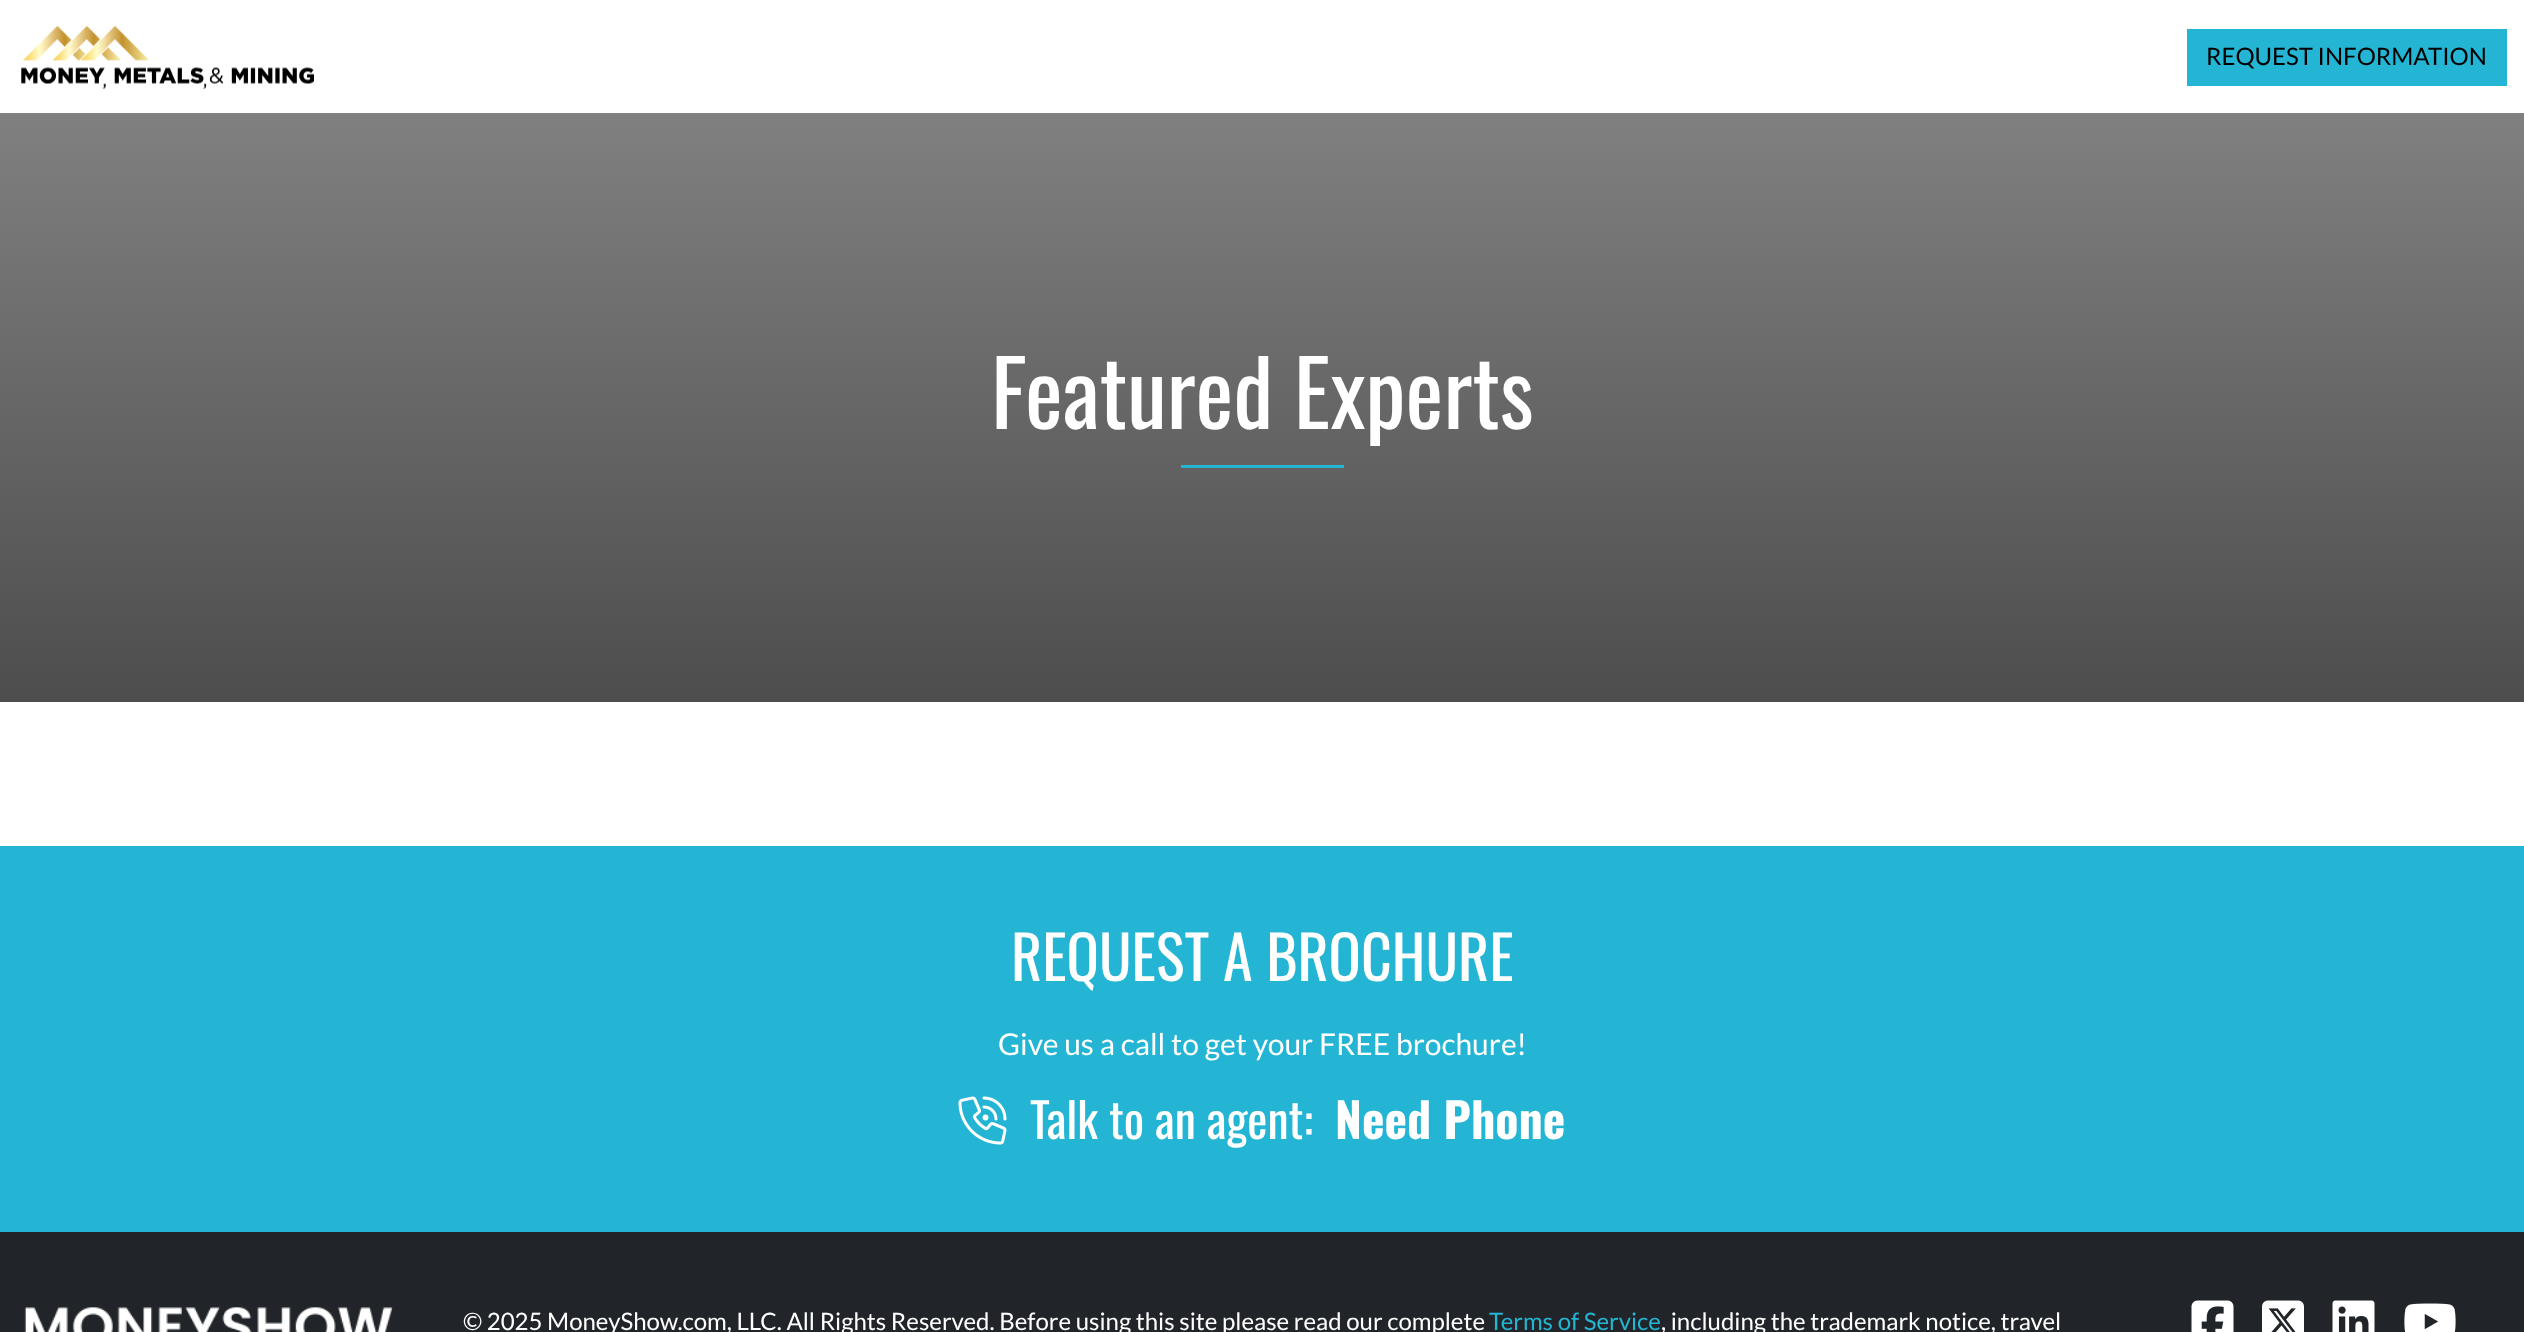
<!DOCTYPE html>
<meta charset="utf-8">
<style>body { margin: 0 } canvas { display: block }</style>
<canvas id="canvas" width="2524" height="1332"></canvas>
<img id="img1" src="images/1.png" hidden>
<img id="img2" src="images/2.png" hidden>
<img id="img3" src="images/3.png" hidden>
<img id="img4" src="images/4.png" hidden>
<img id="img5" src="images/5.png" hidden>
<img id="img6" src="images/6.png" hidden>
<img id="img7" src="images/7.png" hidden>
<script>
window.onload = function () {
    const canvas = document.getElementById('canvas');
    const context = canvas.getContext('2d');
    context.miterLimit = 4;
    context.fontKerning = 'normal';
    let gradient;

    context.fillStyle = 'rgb(255, 255, 255)';
    context.fillRect(0, 0, 2524, 1332);
    context.drawImage(document.getElementById('img1'), 21, 25, 293, 65);
    context.fillStyle = 'rgb(35, 181, 211)';
    context.fillRect(2187, 29, 320, 57);
    gradient = context.createLinearGradient(1262, 112, 1262, 702);
    gradient.addColorStop(0, 'rgb(128, 128, 128)');
    gradient.addColorStop(1, 'rgb(77, 77, 77)');
    context.fillStyle = gradient;
    context.fillRect(0, 113, 2524, 589);
    context.fillStyle = 'rgb(35, 181, 211)';
    context.fillRect(1181, 465, 163, 3);
    context.fillRect(0, 846, 2524, 386);
    context.drawImage(document.getElementById('img2'), 958, 1096, 49, 49);
    context.fillStyle = 'rgb(33, 37, 41)';
    context.fillRect(0, 1232, 2524, 100);
    context.drawImage(document.getElementById('img3'), 24, 1307, 369, 25);
    context.drawImage(document.getElementById('img4'), 2191, 1300, 43, 32);
    context.drawImage(document.getElementById('img5'), 2262, 1300, 42, 32);
    context.drawImage(document.getElementById('img6'), 2332, 1300, 43, 32);
    context.drawImage(document.getElementById('img7'), 2404, 1303, 52, 29);
    context.font = '24px Lato';
    context.fillStyle = 'rgb(0, 0, 0)';
    context.fillText('REQUEST INFORMATION', 2206, 65);
    context.font = '90px Oswald';
    context.fillStyle = 'rgb(255, 255, 255)';
    context.fillText('Featured Experts', 991, 429);
    context.font = '60px Oswald';
    context.fillText('REQUEST A BROCHURE', 1011, 981);
    context.font = '30px Lato';
    context.fillText('Give us a call to get your FREE brochure!', 998, 1055);
    context.font = '48px Oswald';
    context.fillText('Talk to an agent:', 1030, 1139);
    context.font = 'bold 48px Oswald';
    context.fillText('Need Phone', 1335, 1139);
    context.font = '24px Lato';
    context.fillText('© 2025 MoneyShow.com, LLC. All Rights Reserved. Before using this site please read our complete', 463, 1330);
    context.fillStyle = 'rgb(35, 181, 211)';
    context.fillText('Terms of Service', 1489, 1330);
    context.fillStyle = 'rgb(255, 255, 255)';
    context.fillText(', including the trademark notice, travel', 1661, 1330);
};
</script>
